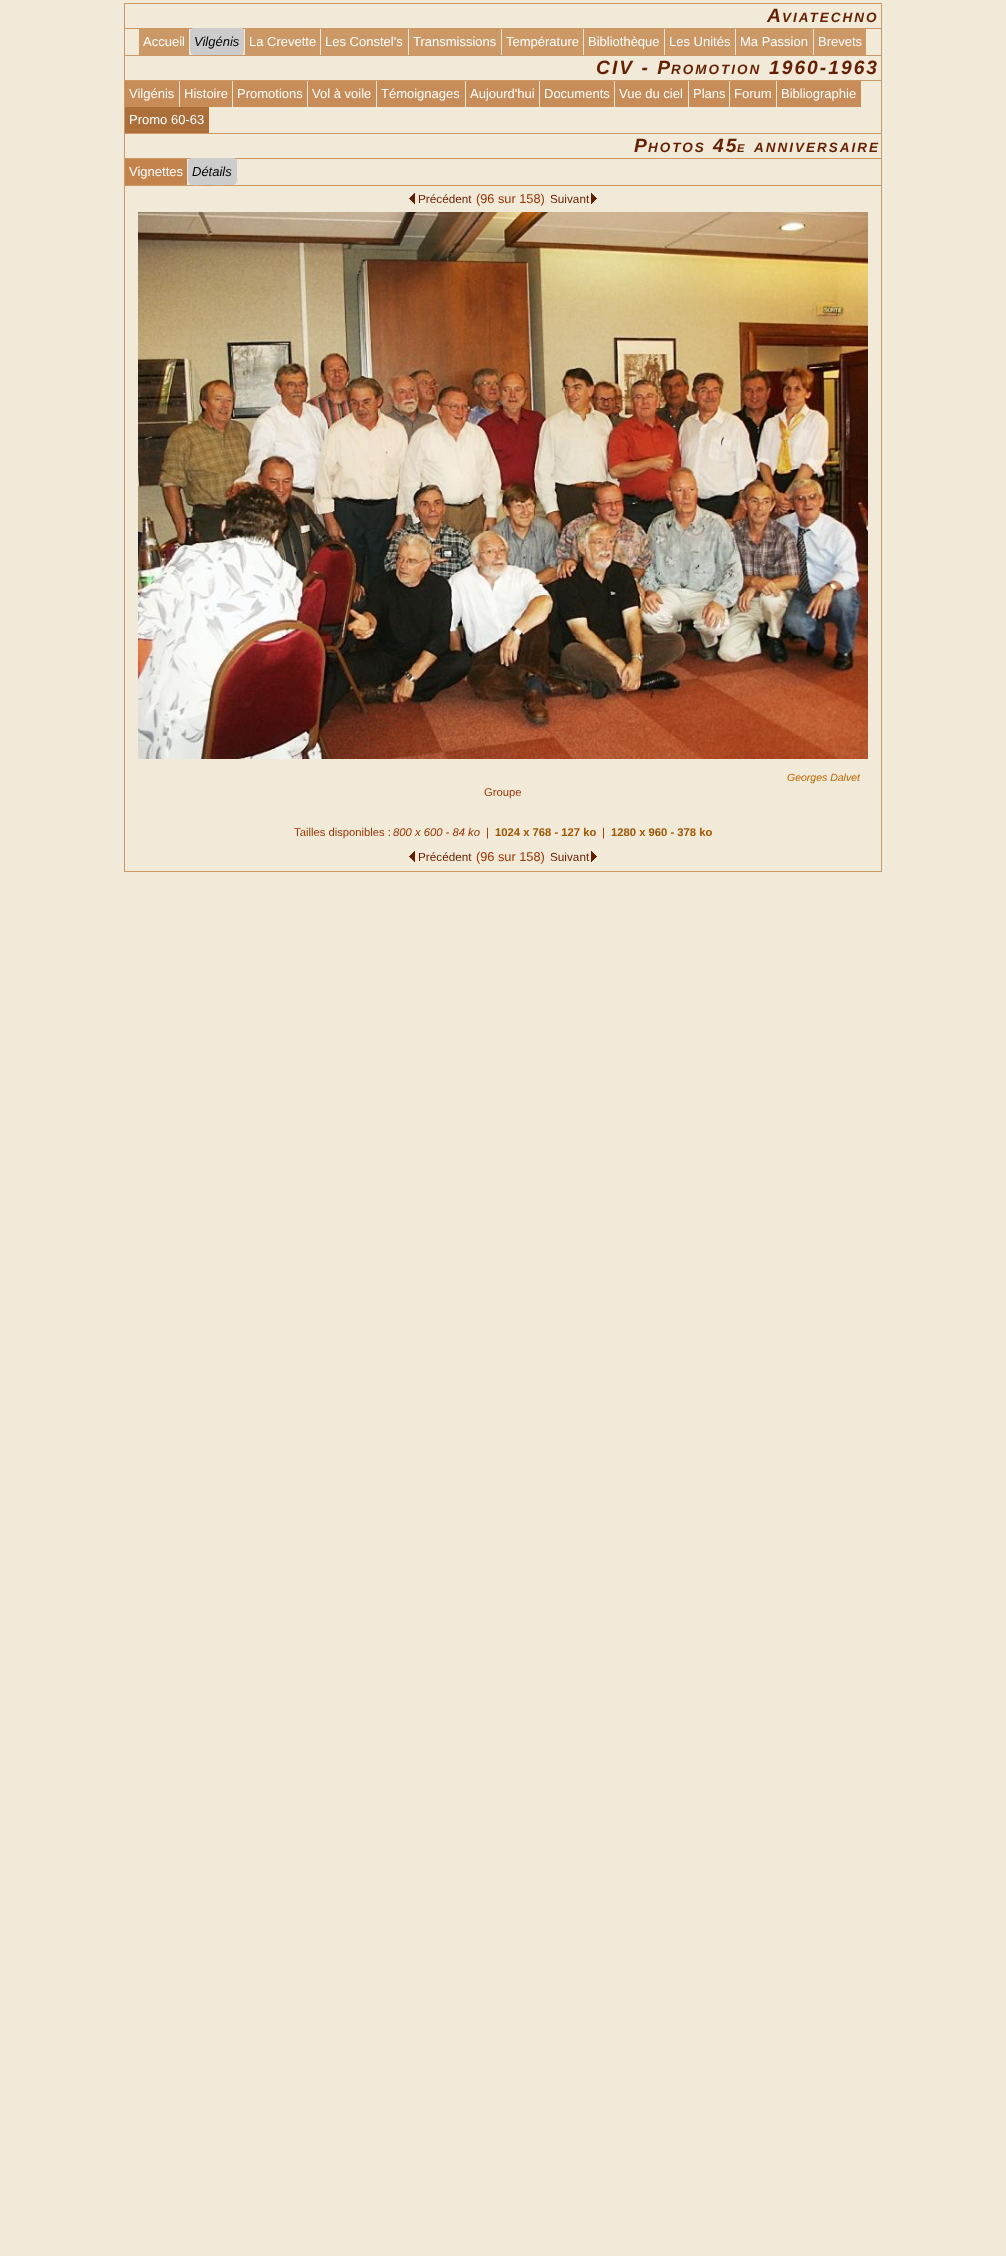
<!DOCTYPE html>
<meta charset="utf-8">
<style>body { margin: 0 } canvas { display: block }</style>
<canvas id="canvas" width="1006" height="2256"></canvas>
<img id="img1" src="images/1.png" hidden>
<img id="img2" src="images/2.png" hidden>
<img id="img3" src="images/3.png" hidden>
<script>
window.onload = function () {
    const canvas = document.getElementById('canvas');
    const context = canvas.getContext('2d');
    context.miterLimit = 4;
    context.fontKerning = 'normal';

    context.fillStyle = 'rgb(241, 234, 216)';
    context.fillRect(0, 0, 1006, 2256);
    context.fillStyle = 'rgb(204, 153, 102)';
    context.fillRect(124, 3, 758, 1);
    context.fillRect(881, 3, 1, 183);
    context.fillRect(124, 3, 1, 183);
    context.fillRect(125, 28, 756, 1);
    context.fillRect(125, 55, 756, 1);
    context.fillRect(139, 29, 50, 26);
    context.fillStyle = 'rgb(204, 204, 204)';
    context.beginPath();
    context.roundRect(190, 28, 55, 27, 5);
    context.fill();
    context.beginPath();
    context.moveTo(195, 28);
    context.bezierCurveTo(192, 28, 190, 30, 190, 33);
    context.bezierCurveTo(190, 31, 192, 30, 195, 30);
    context.lineTo(240, 30);
    context.bezierCurveTo(241, 30, 243, 30, 243, 31);
    context.lineTo(244, 30);
    context.bezierCurveTo(243, 29, 242, 28, 240, 28);
    context.closePath();
    context.fill();
    context.fillStyle = 'rgb(241, 234, 216)';
    context.beginPath();
    context.moveTo(243, 53);
    context.bezierCurveTo(243.5, 52, 244, 51, 244, 50);
    context.lineTo(244, 33);
    context.bezierCurveTo(244, 32.5, 244, 31.5, 243.5, 31.5);
    context.lineTo(244, 30);
    context.bezierCurveTo(244.5, 30.5, 245, 32, 245, 33);
    context.lineTo(245, 50);
    context.bezierCurveTo(245, 51.5, 244.5, 53, 243.5, 53.5);
    context.closePath();
    context.fill();
    context.fillStyle = 'rgb(204, 204, 204)';
    context.beginPath();
    context.moveTo(195, 55);
    context.lineTo(240, 55);
    context.bezierCurveTo(242, 55, 243, 54, 244, 54);
    context.lineTo(243, 53);
    context.bezierCurveTo(242, 54, 241, 54, 240, 54);
    context.lineTo(195, 54);
    context.bezierCurveTo(192, 54, 190, 52, 190, 50);
    context.bezierCurveTo(190, 53, 192, 55, 195, 55);
    context.closePath();
    context.fill();
    context.fillStyle = 'rgb(204, 153, 102)';
    context.fillRect(245, 29, 75, 26);
    context.fillRect(321, 29, 87, 26);
    context.fillRect(409, 29, 92, 26);
    context.fillRect(502, 29, 81, 26);
    context.fillRect(584, 29, 80, 26);
    context.fillRect(665, 29, 70, 26);
    context.fillRect(736, 29, 77, 26);
    context.fillRect(814, 29, 52, 26);
    context.fillRect(125, 80, 756, 1);
    context.fillRect(125, 133, 756, 1);
    context.fillStyle = 'rgb(199, 140, 87)';
    context.fillRect(125, 81, 54, 26);
    context.fillRect(180, 81, 52, 26);
    context.fillRect(233, 81, 74, 26);
    context.fillRect(308, 81, 68, 26);
    context.fillRect(377, 81, 88, 26);
    context.fillRect(466, 81, 73, 26);
    context.fillRect(540, 81, 74, 26);
    context.fillRect(615, 81, 73, 26);
    context.fillRect(689, 81, 40, 26);
    context.fillRect(730, 81, 46, 26);
    context.fillRect(777, 81, 84, 26);
    context.fillStyle = 'rgb(173, 111, 57)';
    context.fillRect(125, 107, 84, 26);
    context.fillStyle = 'rgb(204, 153, 102)';
    context.fillRect(125, 158, 756, 1);
    context.fillRect(125, 185, 756, 1);
    context.fillStyle = 'rgb(195, 131, 75)';
    context.fillRect(125, 159, 62, 26);
    context.fillStyle = 'rgb(204, 204, 204)';
    context.beginPath();
    context.roundRect(188, 158, 50, 27, 5);
    context.fill();
    context.beginPath();
    context.moveTo(193, 158);
    context.bezierCurveTo(190, 158, 188, 160, 188, 163);
    context.bezierCurveTo(188, 161, 190, 160, 193, 160);
    context.lineTo(233, 160);
    context.bezierCurveTo(234, 160, 236, 160, 236, 161);
    context.lineTo(237, 160);
    context.bezierCurveTo(236, 159, 235, 158, 234, 158);
    context.closePath();
    context.fill();
    context.fillStyle = 'rgb(241, 234, 216)';
    context.beginPath();
    context.moveTo(238, 163);
    context.bezierCurveTo(238, 167, 239, 181, 236.5, 183.5);
    context.lineTo(236, 183);
    context.bezierCurveTo(236.5, 182, 237, 181, 237, 180);
    context.lineTo(237, 163);
    context.bezierCurveTo(237, 162.5, 237, 161.5, 236.5, 161.5);
    context.lineTo(237, 160);
    context.closePath();
    context.fill();
    context.fillStyle = 'rgb(204, 204, 204)';
    context.beginPath();
    context.moveTo(188, 172);
    context.bezierCurveTo(188, 189, 189, 185, 209, 185);
    context.bezierCurveTo(212, 185, 233, 186, 236, 183);
    context.bezierCurveTo(233, 185, 229, 184, 226, 184);
    context.lineTo(200, 184);
    context.bezierCurveTo(188, 184, 188, 184, 188, 172);
    context.closePath();
    context.fill();
    context.fillStyle = 'rgb(204, 153, 102)';
    context.fillRect(881, 186, 1, 686);
    context.fillRect(124, 871, 758, 1);
    context.fillRect(124, 186, 1, 686);
    context.drawImage(document.getElementById('img1'), 409, 193, 6, 11);
    context.drawImage(document.getElementById('img2'), 591, 193, 6, 11);
    context.drawImage(document.getElementById('img3'), 138, 212, 730, 547);
    context.drawImage(document.getElementById('img1'), 409, 851, 6, 11);
    context.drawImage(document.getElementById('img2'), 591, 851, 6, 11);
    context.letterSpacing = '2px';
    context.font = 'italic bold 19.25px Liberation Sans';
    context.fillStyle = 'rgb(102, 31, 0)';
    context.fillText('A', 767, 22);
    context.font = 'italic bold 13.5px Liberation Sans';
    context.fillText('VIATECHNO', 782, 22);
    context.letterSpacing = '0px';
    context.font = '13px Liberation Sans';
    context.fillStyle = 'rgb(255, 255, 255)';
    context.fillText('Accueil', 143, 46);
    context.font = 'italic 13px Liberation Sans';
    context.fillStyle = 'rgb(0, 0, 0)';
    context.fillText('Vilgénis', 194, 46);
    context.font = '13px Liberation Sans';
    context.fillStyle = 'rgb(255, 255, 255)';
    context.fillText('La Crevette', 249, 46);
    context.fillText('Les Constel\'s', 325, 46);
    context.fillText('Transmissions', 413, 46);
    context.fillText('Température', 506, 46);
    context.fillText('Bibliothèque', 588, 46);
    context.fillText('Les Unités', 669, 46);
    context.fillText('Ma Passion', 740, 46);
    context.fillText('Brevets', 818, 46);
    context.letterSpacing = '2px';
    context.font = 'italic bold 19.25px Liberation Sans';
    context.fillStyle = 'rgb(102, 31, 0)';
    context.fillText('CIV - P', 596, 74);
    context.font = 'italic bold 13.5px Liberation Sans';
    context.fillText('ROMOTION', 671, 74);
    context.font = 'italic bold 19.25px Liberation Sans';
    context.fillText('1960-1963', 769, 74);
    context.letterSpacing = '0px';
    context.font = '13px Liberation Sans';
    context.fillStyle = 'rgb(255, 255, 255)';
    context.fillText('Vilgénis', 129, 98);
    context.fillText('Histoire', 184, 98);
    context.fillText('Promotions', 237, 98);
    context.fillText('Vol à voile', 312, 98);
    context.fillText('Témoignages', 381, 98);
    context.fillText('Aujourd\'hui', 470, 98);
    context.fillText('Documents', 544, 98);
    context.fillText('Vue du ciel', 619, 98);
    context.fillText('Plans', 693, 98);
    context.fillText('Forum', 734, 98);
    context.fillText('Bibliographie', 781, 98);
    context.fillText('Promo 60-63', 129, 124);
    context.letterSpacing = '2px';
    context.font = 'italic bold 19.25px Liberation Sans';
    context.fillStyle = 'rgb(102, 31, 0)';
    context.fillText('P', 634, 152);
    context.font = 'italic bold 13.5px Liberation Sans';
    context.fillText('HOTOS', 648, 152);
    context.font = 'italic bold 19.25px Liberation Sans';
    context.fillText('45', 713, 152);
    context.font = 'italic bold 11.25px Liberation Sans';
    context.fillText('E', 737, 152);
    context.font = 'italic bold 13.5px Liberation Sans';
    context.fillText('ANNIVERSAIRE', 754, 152);
    context.letterSpacing = '0px';
    context.font = '13px Liberation Sans';
    context.fillStyle = 'rgb(255, 255, 255)';
    context.fillText('Vignettes', 129, 176);
    context.font = 'italic 13px Liberation Sans';
    context.fillStyle = 'rgb(0, 0, 0)';
    context.fillText('Détails', 192, 176);
    context.font = '11.75px Liberation Sans';
    context.fillStyle = 'rgb(102, 31, 0)';
    context.fillText('Précédent', 418, 203);
    context.font = '12.75px Liberation Sans';
    context.fillStyle = 'rgb(153, 51, 0)';
    context.fillText('(96 sur 158)', 476, 203);
    context.font = '11.75px Liberation Sans';
    context.fillStyle = 'rgb(102, 31, 0)';
    context.fillText('Suivant', 550, 203);
    context.font = 'italic 10.5px Liberation Sans';
    context.fillStyle = 'rgb(188, 102, 0)';
    context.fillText('Georges Dalvet', 787, 781);
    context.font = '11.25px Liberation Sans';
    context.fillStyle = 'rgb(153, 51, 0)';
    context.fillText('Groupe', 484, 796);
    context.fillText('Tailles disponibles :', 294, 836);
    context.font = 'italic 11.25px Liberation Sans';
    context.fillText('800 x 600 - 84 ko', 393, 836);
    context.font = '11.25px Liberation Sans';
    context.fillText('|', 486, 836);
    context.font = 'bold 11.25px Liberation Sans';
    context.fillStyle = 'rgb(158, 85, 0)';
    context.fillText('1024 x 768 - 127 ko', 495, 836);
    context.font = '11.25px Liberation Sans';
    context.fillStyle = 'rgb(153, 51, 0)';
    context.fillText('|', 602, 836);
    context.font = 'bold 11.25px Liberation Sans';
    context.fillStyle = 'rgb(158, 85, 0)';
    context.fillText('1280 x 960 - 378 ko', 611, 836);
    context.font = '11.75px Liberation Sans';
    context.fillStyle = 'rgb(102, 31, 0)';
    context.fillText('Précédent', 418, 861);
    context.font = '12.75px Liberation Sans';
    context.fillStyle = 'rgb(153, 51, 0)';
    context.fillText('(96 sur 158)', 476, 861);
    context.font = '11.75px Liberation Sans';
    context.fillStyle = 'rgb(102, 31, 0)';
    context.fillText('Suivant', 550, 861);
};
</script>
